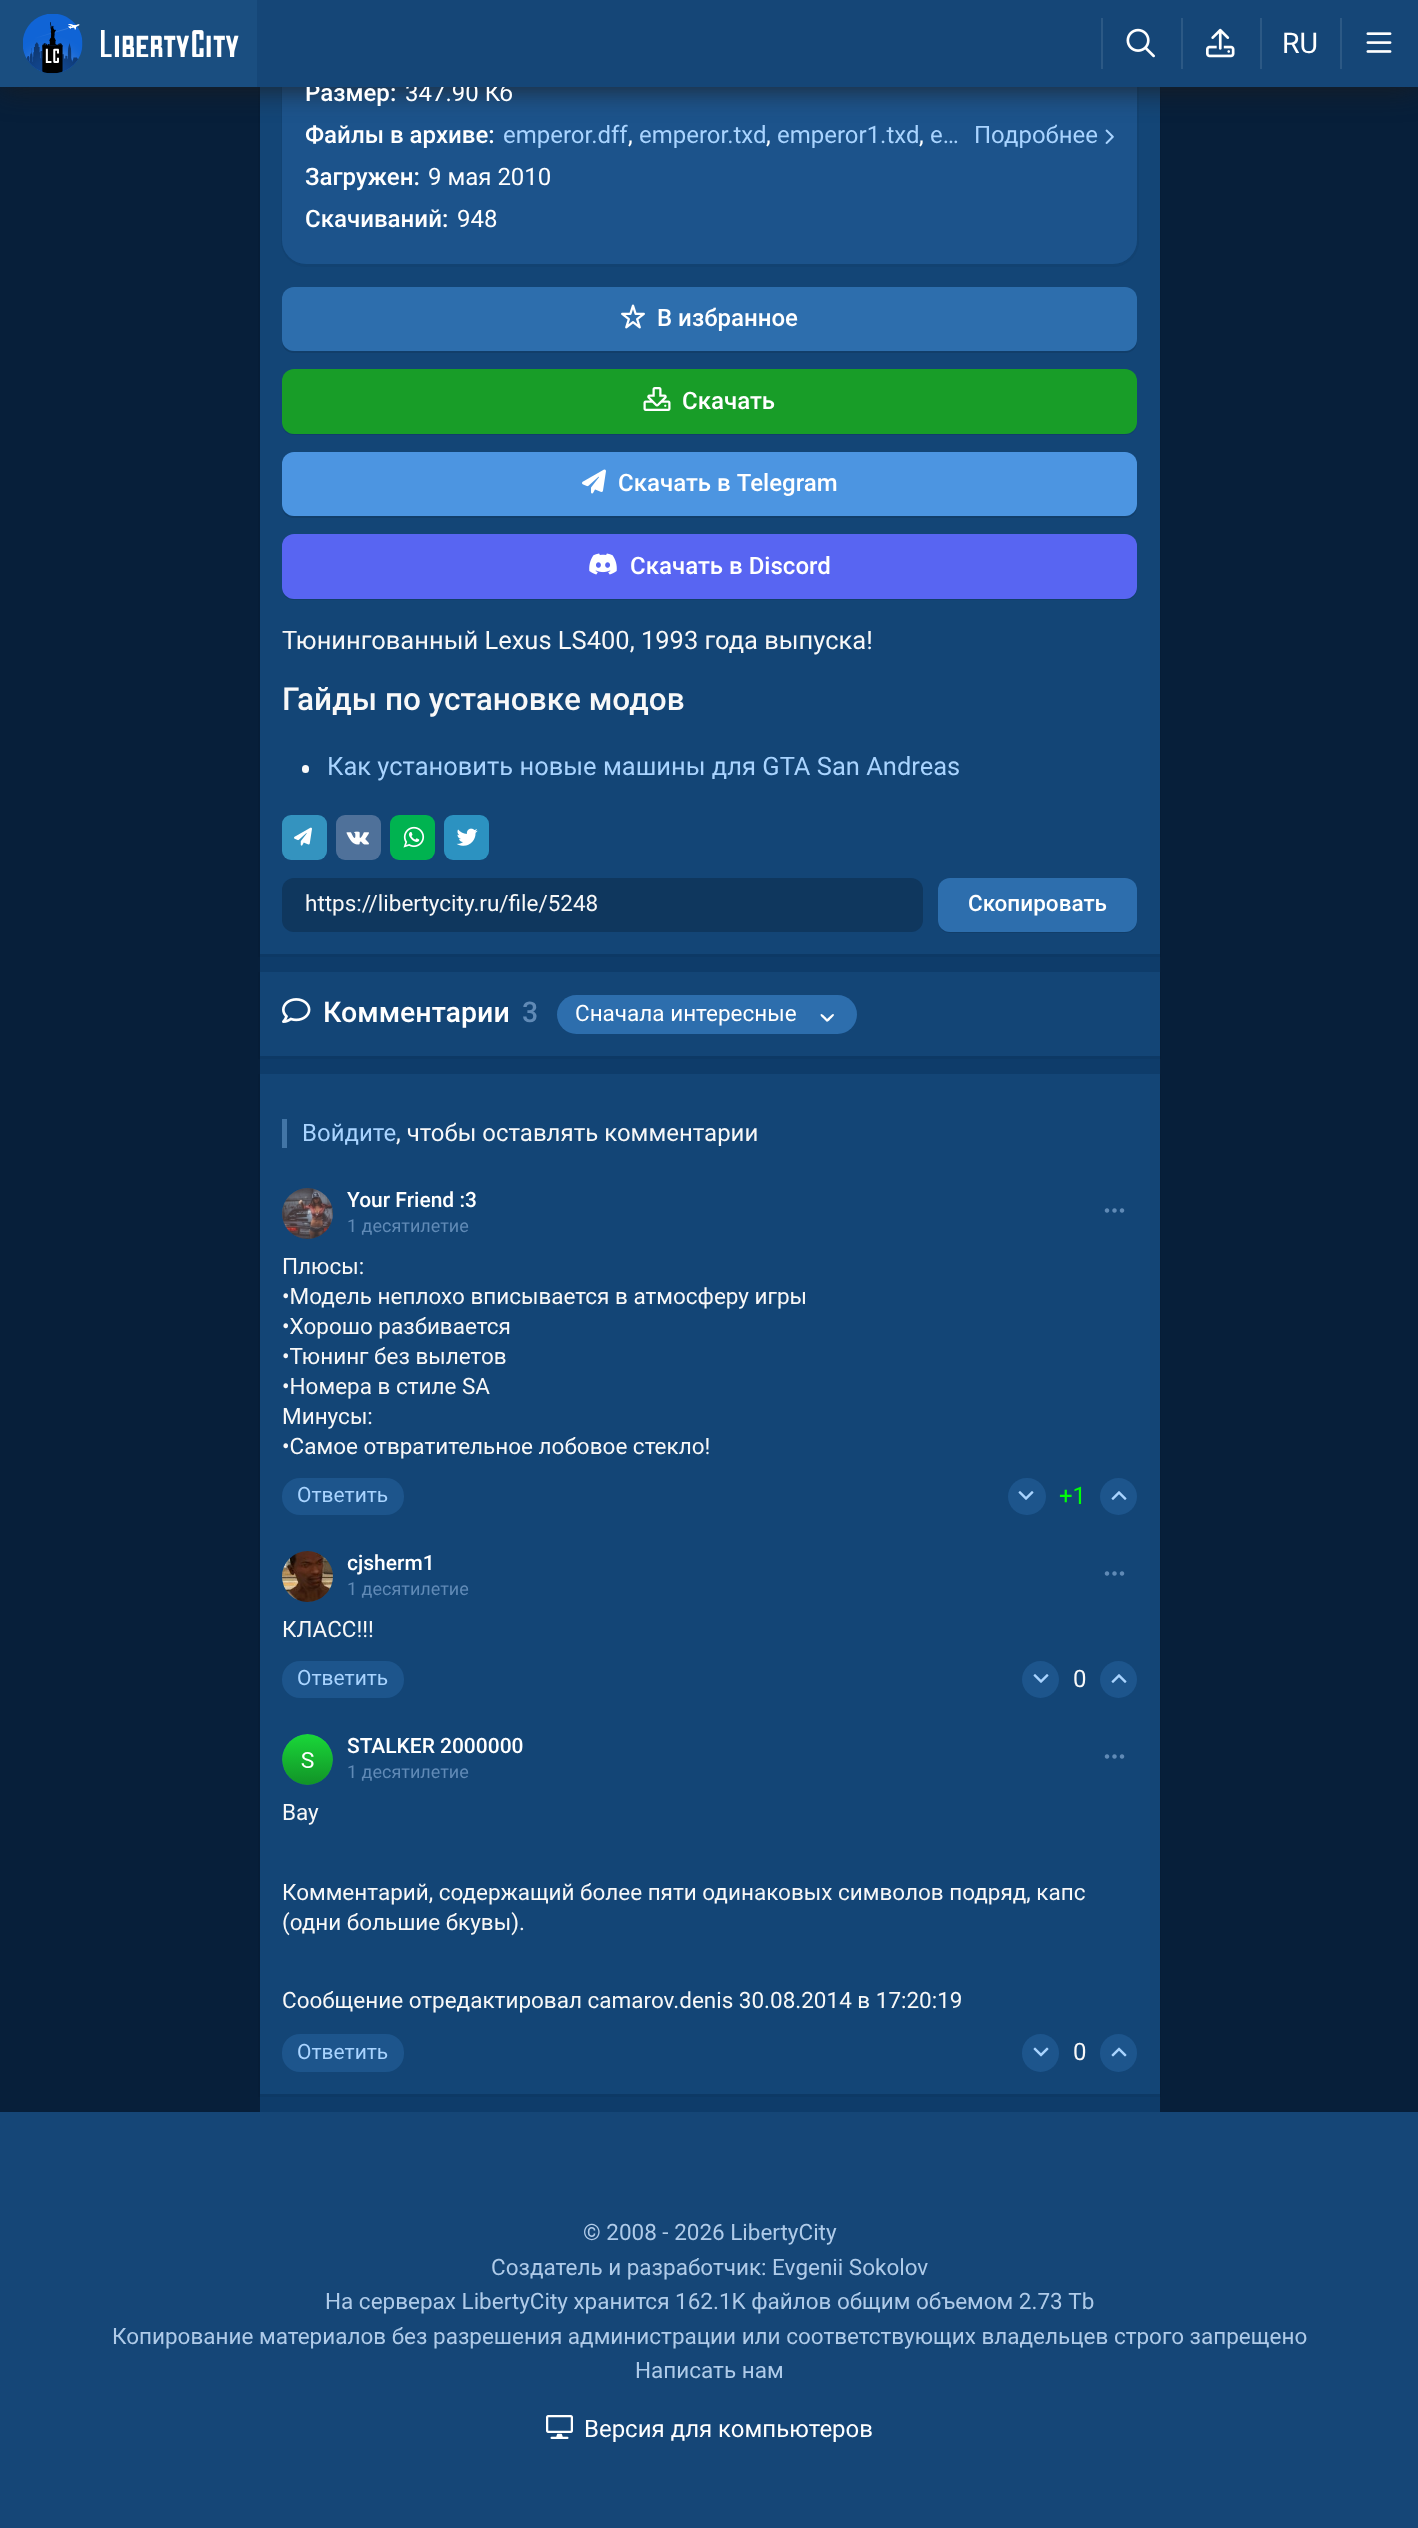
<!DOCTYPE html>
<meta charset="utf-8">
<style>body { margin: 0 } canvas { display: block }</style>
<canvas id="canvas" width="1418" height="2528"></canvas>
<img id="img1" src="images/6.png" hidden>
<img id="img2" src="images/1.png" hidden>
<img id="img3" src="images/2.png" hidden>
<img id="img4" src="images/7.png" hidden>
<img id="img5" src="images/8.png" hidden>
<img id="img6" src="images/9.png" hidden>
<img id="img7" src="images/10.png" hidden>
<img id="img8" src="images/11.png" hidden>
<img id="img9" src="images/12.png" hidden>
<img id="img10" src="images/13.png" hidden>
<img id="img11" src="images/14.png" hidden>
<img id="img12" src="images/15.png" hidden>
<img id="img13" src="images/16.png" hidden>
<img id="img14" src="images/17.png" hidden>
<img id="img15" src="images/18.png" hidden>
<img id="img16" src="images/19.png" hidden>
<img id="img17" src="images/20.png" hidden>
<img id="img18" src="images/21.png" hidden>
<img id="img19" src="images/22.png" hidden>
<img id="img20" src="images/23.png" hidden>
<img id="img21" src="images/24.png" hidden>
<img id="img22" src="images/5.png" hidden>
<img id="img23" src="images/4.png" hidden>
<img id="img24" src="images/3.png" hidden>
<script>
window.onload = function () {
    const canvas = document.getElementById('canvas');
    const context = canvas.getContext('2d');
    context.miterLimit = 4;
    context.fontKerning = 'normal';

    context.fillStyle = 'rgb(7, 31, 58)';
    context.fillRect(0, 0, 1418, 2528);
    context.fillStyle = 'rgb(14, 60, 106)';
    context.fillRect(260, 954, 900, 1158);
    context.fillStyle = 'rgba(0, 0, 0, 0.04)';
    context.beginPath();
    context.moveTo(258, -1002);
    context.lineTo(258, 957);
    context.lineTo(1161, 957);
    context.lineTo(1161, -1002);
    context.lineTo(1160, -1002);
    context.lineTo(1160, 954);
    context.lineTo(260, 954);
    context.lineTo(260, -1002);
    context.closePath();
    context.fill();
    context.fillStyle = 'rgb(19, 69, 118)';
    context.fillRect(260, 87, 900, 867);
    context.fillStyle = 'rgb(18, 66, 113)';
    context.beginPath();
    context.moveTo(1139, -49);
    context.bezierCurveTo(1139, -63, 1127, -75, 1113, -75);
    context.bezierCurveTo(1126, -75, 1137, -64, 1137, -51);
    context.lineTo(1137, 240);
    context.bezierCurveTo(1137, 253, 1126, 264, 1113, 264);
    context.lineTo(306, 264);
    context.bezierCurveTo(293, 264, 282, 253, 282, 240);
    context.lineTo(282, -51);
    context.bezierCurveTo(282, -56, 284, -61, 286, -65);
    context.bezierCurveTo(283, -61, 281, -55, 281, -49);
    context.lineTo(281, 241);
    context.bezierCurveTo(281, 255, 293, 267, 307, 267);
    context.lineTo(1113, 267);
    context.bezierCurveTo(1127, 267, 1139, 255, 1139, 241);
    context.closePath();
    context.fill();
    context.fillStyle = 'rgb(28, 83, 139)';
    context.beginPath();
    context.roundRect(282, -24, 855, 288, 24);
    context.fill();
    context.drawImage(document.getElementById('img1'), 1105, 129, 9, 15);
    context.fillStyle = 'rgba(28, 28, 28, 0.93)';
    context.filter = 'blur(15px)';
    context.beginPath();
    context.rect(0, 0, 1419, 87);
    context.fill();
    context.filter = 'none';
    context.fillStyle = 'rgb(26, 78, 128)';
    context.fillRect(0, 0, 257, 87);
    context.drawImage(document.getElementById('img2'), 23, 14, 60, 60);
    context.drawImage(document.getElementById('img3'), 101, 30, 138, 27);
    context.fillStyle = 'rgb(17, 62, 106)';
    context.beginPath();
    context.moveTo(282, 339);
    context.lineTo(282, 341);
    context.bezierCurveTo(282, 348, 287, 353, 294, 353);
    context.lineTo(1125, 353);
    context.bezierCurveTo(1132, 353, 1137, 348, 1137, 341);
    context.lineTo(1137, 339);
    context.bezierCurveTo(1137, 346, 1132, 351, 1125, 351);
    context.lineTo(294, 351);
    context.bezierCurveTo(287, 351, 282, 346, 282, 339);
    context.closePath();
    context.fill();
    context.fillStyle = 'rgb(45, 110, 173)';
    context.beginPath();
    context.roundRect(282, 287, 855, 64, 12);
    context.fill();
    context.drawImage(document.getElementById('img4'), 621, 304, 24, 25);
    context.fillStyle = 'rgb(17, 62, 106)';
    context.beginPath();
    context.moveTo(282, 422);
    context.lineTo(282, 423);
    context.bezierCurveTo(282, 430, 287, 435, 294, 435);
    context.lineTo(1125, 435);
    context.bezierCurveTo(1132, 435, 1137, 430, 1137, 423);
    context.lineTo(1137, 422);
    context.bezierCurveTo(1137, 428, 1132, 434, 1125, 434);
    context.lineTo(294, 434);
    context.bezierCurveTo(287, 434, 282, 428, 282, 422);
    context.closePath();
    context.fill();
    context.fillStyle = 'rgb(24, 157, 40)';
    context.beginPath();
    context.roundRect(282, 369, 855, 65, 12);
    context.fill();
    context.drawImage(document.getElementById('img5'), 643, 387, 28, 24);
    context.fillStyle = 'rgb(17, 62, 106)';
    context.beginPath();
    context.moveTo(282, 504);
    context.lineTo(282, 506);
    context.bezierCurveTo(282, 513, 287, 518, 294, 518);
    context.lineTo(1125, 518);
    context.bezierCurveTo(1132, 518, 1137, 513, 1137, 506);
    context.lineTo(1137, 504);
    context.bezierCurveTo(1137, 511, 1132, 516, 1125, 516);
    context.lineTo(294, 516);
    context.bezierCurveTo(287, 516, 282, 511, 282, 504);
    context.closePath();
    context.fill();
    context.fillStyle = 'rgb(76, 149, 225)';
    context.beginPath();
    context.roundRect(282, 452, 855, 64, 12);
    context.fill();
    context.drawImage(document.getElementById('img6'), 582, 469, 24, 25);
    context.fillStyle = 'rgb(17, 62, 106)';
    context.beginPath();
    context.moveTo(282, 586);
    context.lineTo(282, 588);
    context.bezierCurveTo(282, 595, 287, 600, 294, 600);
    context.lineTo(1125, 600);
    context.bezierCurveTo(1132, 600, 1137, 595, 1137, 588);
    context.lineTo(1137, 586);
    context.bezierCurveTo(1137, 593, 1132, 598, 1125, 598);
    context.lineTo(294, 598);
    context.bezierCurveTo(287, 598, 282, 593, 282, 586);
    context.closePath();
    context.fill();
    context.fillStyle = 'rgb(88, 101, 242)';
    context.beginPath();
    context.roundRect(282, 534, 855, 65, 12);
    context.fill();
    context.drawImage(document.getElementById('img7'), 589, 553, 28, 22);
    context.fillStyle = 'rgb(248, 248, 248)';
    context.beginPath();
    context.roundRect(302, 765, 7, 8, 3.5);
    context.fill();
    context.fillStyle = 'rgb(52, 147, 191)';
    context.beginPath();
    context.roundRect(282, 815, 45, 45, 9);
    context.fill();
    context.drawImage(document.getElementById('img8'), 294, 827, 18, 19);
    context.fillStyle = 'rgb(79, 113, 154)';
    context.beginPath();
    context.roundRect(336, 815, 45, 45, 9);
    context.fill();
    context.drawImage(document.getElementById('img9'), 346, 831, 23, 14);
    context.fillStyle = 'rgb(0, 179, 80)';
    context.beginPath();
    context.roundRect(390, 815, 45, 45, 9);
    context.fill();
    context.drawImage(document.getElementById('img10'), 403, 826, 22, 22);
    context.fillStyle = 'rgb(44, 146, 193)';
    context.beginPath();
    context.roundRect(444, 815, 45, 45, 9);
    context.fill();
    context.drawImage(document.getElementById('img11'), 456, 828, 22, 18);
    context.fillStyle = 'rgb(15, 55, 94)';
    context.beginPath();
    context.roundRect(282, 878, 641, 54, 12);
    context.fill();
    context.fillStyle = 'rgb(17, 62, 106)';
    context.beginPath();
    context.moveTo(938, 924);
    context.bezierCurveTo(940, 929, 944, 933, 950, 933);
    context.lineTo(1125, 933);
    context.bezierCurveTo(1132, 933, 1137, 928, 1137, 921);
    context.lineTo(1137, 920);
    context.bezierCurveTo(1137, 926, 1132, 932, 1125, 932);
    context.lineTo(950, 932);
    context.bezierCurveTo(944, 932, 940, 928, 938, 924);
    context.closePath();
    context.fill();
    context.fillStyle = 'rgb(45, 110, 173)';
    context.beginPath();
    context.roundRect(938, 878, 199, 54, 12);
    context.fill();
    context.fillStyle = 'rgba(0, 0, 0, 0.04)';
    context.beginPath();
    context.moveTo(258, 972);
    context.lineTo(258, 1059);
    context.lineTo(1161, 1059);
    context.lineTo(1161, 972);
    context.lineTo(1160, 972);
    context.lineTo(1160, 1056);
    context.lineTo(260, 1056);
    context.lineTo(260, 972);
    context.closePath();
    context.fill();
    context.fillStyle = 'rgb(19, 69, 118)';
    context.fillRect(260, 972, 900, 84);
    context.drawImage(document.getElementById('img12'), 282, 998, 29, 25);
    context.fillStyle = 'rgb(45, 110, 173)';
    context.beginPath();
    context.roundRect(557, 995, 300, 39, 19.5);
    context.fill();
    context.fillStyle = 'rgb(255, 255, 255)';
    context.beginPath();
    context.moveTo(832, 1014.5);
    context.lineTo(827, 1019);
    context.bezierCurveTo(826.5, 1018, 822.5, 1014, 821.5, 1014);
    context.bezierCurveTo(818.5, 1014.5, 823.5, 1018.5, 823.5, 1018.5);
    context.lineTo(826.5, 1021.5);
    context.bezierCurveTo(828, 1022.5, 830, 1019.5, 831, 1018.5);
    context.bezierCurveTo(832.5, 1017, 835.5, 1014.5, 833, 1014);
    context.closePath();
    context.fill();
    context.fillStyle = 'rgba(0, 0, 0, 0.04)';
    context.beginPath();
    context.moveTo(258, 1074);
    context.lineTo(258, 2097);
    context.lineTo(1161, 2097);
    context.lineTo(1161, 1074);
    context.lineTo(1160, 1074);
    context.lineTo(1160, 2094);
    context.lineTo(260, 2094);
    context.lineTo(260, 1074);
    context.closePath();
    context.fill();
    context.fillStyle = 'rgb(19, 69, 118)';
    context.fillRect(260, 1074, 900, 1020);
    context.fillStyle = 'rgb(66, 117, 166)';
    context.fillRect(282, 1119, 5, 29);
    context.fillStyle = 'rgb(29, 85, 140)';
    context.beginPath();
    context.arc(307.5, 1213.5, 25.5, 0, 2 * Math.PI);
    context.fill();
    context.drawImage(document.getElementById('img13'), 282, 1188, 51, 51);
    context.drawImage(document.getElementById('img14'), 1104, 1208, 21, 5);
    context.beginPath();
    context.roundRect(282, 1478, 122, 37, 18);
    context.fill();
    context.beginPath();
    context.roundRect(1008, 1478, 38, 37, 18.5);
    context.fill();
    context.drawImage(document.getElementById('img15'), 1018, 1491, 16, 9);
    context.beginPath();
    context.arc(1118.5, 1496.5, 18.5, 0, 2 * Math.PI);
    context.fill();
    context.drawImage(document.getElementById('img16'), 1111, 1491, 16, 9);
    context.beginPath();
    context.arc(307.5, 1576.5, 25.5, 0, 2 * Math.PI);
    context.fill();
    context.drawImage(document.getElementById('img17'), 282, 1551, 51, 51);
    context.drawImage(document.getElementById('img14'), 1104, 1571, 21, 5);
    context.beginPath();
    context.roundRect(282, 1661, 122, 37, 18);
    context.fill();
    context.beginPath();
    context.arc(1040.5, 1679.5, 18.5, 0, 2 * Math.PI);
    context.fill();
    context.drawImage(document.getElementById('img15'), 1033, 1674, 16, 9);
    context.beginPath();
    context.arc(1118.5, 1679.5, 18.5, 0, 2 * Math.PI);
    context.fill();
    context.drawImage(document.getElementById('img16'), 1111, 1674, 16, 9);
    context.beginPath();
    context.arc(307.5, 1759.5, 25.5, 0, 2 * Math.PI);
    context.fill();
    context.drawImage(document.getElementById('img18'), 282, 1734, 51, 51);
    context.drawImage(document.getElementById('img14'), 1104, 1754, 21, 5);
    context.beginPath();
    context.roundRect(282, 2034, 122, 38, 18);
    context.fill();
    context.beginPath();
    context.roundRect(1022, 2034, 37, 38, 18.5);
    context.fill();
    context.drawImage(document.getElementById('img19'), 1033, 2047, 16, 10);
    context.beginPath();
    context.roundRect(1100, 2034, 37, 38, 18.5);
    context.fill();
    context.drawImage(document.getElementById('img20'), 1111, 2047, 16, 10);
    context.fillStyle = 'rgb(21, 70, 119)';
    context.fillRect(0, 2112, 1418, 416);
    context.drawImage(document.getElementById('img21'), 546, 2415, 27, 24);
    context.font = '500 24px Roboto';
    context.fillStyle = 'rgb(255, 255, 255)';
    context.fillText('Размер:', 305, 101);
    context.font = '24px Roboto';
    context.fillText('347.90 Кб', 405, 101);
    context.fillStyle = 'rgb(21, 70, 119)';
    context.fillRect(257, 0, 1161, 87);
    context.fillStyle = 'rgb(44, 89, 133)';
    context.fillRect(1340, 18, 2, 51);
    context.fillRect(1260, 18, 2, 51);
    context.fillRect(1181, 18, 2, 51);
    context.fillRect(1101, 18, 2, 51);
    context.drawImage(document.getElementById('img22'), 1366, 32, 26, 21);
    context.font = '28.5px Roboto';
    context.fillStyle = 'rgb(255, 255, 255)';
    context.fillText('RU', 1282, 53);
    context.drawImage(document.getElementById('img23'), 1206, 28, 29, 30);
    context.drawImage(document.getElementById('img24'), 1126, 28, 29, 30);
    context.font = '500 24px Roboto';
    context.fillText('Файлы в архиве:', 305, 143);
    context.font = '24px Roboto';
    context.fillStyle = 'rgb(169, 212, 255)';
    context.fillText('emperor.dff', 503, 143);
    context.fillStyle = 'rgb(255, 255, 255)';
    context.fillText(',', 628, 143);
    context.fillStyle = 'rgb(169, 212, 255)';
    context.fillText('emperor.txd', 639, 143);
    context.fillStyle = 'rgb(255, 255, 255)';
    context.fillText(',', 766, 143);
    context.fillStyle = 'rgb(169, 212, 255)';
    context.fillText('emperor1.txd', 777, 143);
    context.fillStyle = 'rgb(255, 255, 255)';
    context.fillText(',', 919, 143);
    context.fillStyle = 'rgb(169, 212, 255)';
    context.fillText('e…', 930, 143);
    context.fillText('Подробнее', 974, 143);
    context.font = '500 24px Roboto';
    context.fillStyle = 'rgb(255, 255, 255)';
    context.fillText('Загружен:', 305, 185);
    context.font = '24px Roboto';
    context.fillText('9 мая 2010', 428, 185);
    context.font = '500 24px Roboto';
    context.fillText('Скачиваний:', 305, 227);
    context.font = '24px Roboto';
    context.fillText('948', 457, 227);
    context.font = '500 24px Roboto';
    context.fillText('В избранное', 657, 326);
    context.fillText('Скачать', 682, 409);
    context.fillText('Скачать в Telegram', 618, 491);
    context.fillText('Скачать в Discord', 630, 574);
    context.font = '25.5px Roboto';
    context.fillStyle = 'rgb(248, 248, 248)';
    context.fillText('Тюнингованный Lexus LS400, 1993 года выпуска!', 282, 649);
    context.font = '500 31.5px Roboto';
    context.fillText('Гайды по установке модов', 282, 710);
    context.font = '25.5px Roboto';
    context.fillStyle = 'rgb(169, 212, 255)';
    context.fillText('Как установить новые машины для GTA San Andreas', 327, 775);
    context.font = '22.5px Roboto';
    context.fillStyle = 'rgb(248, 248, 248)';
    context.fillText('https://libertycity.ru/file/5248', 305, 911);
    context.font = '500 22.5px Roboto';
    context.fillStyle = 'rgb(255, 255, 255)';
    context.fillText('Скопировать', 968, 911);
    context.font = '500 28.5px Roboto';
    context.fillText('Комментарии', 323, 1022);
    context.fillStyle = 'rgb(96, 138, 182)';
    context.fillText('3', 522, 1022);
    context.font = '22.5px Roboto';
    context.fillStyle = 'rgb(255, 255, 255)';
    context.fillText('Сначала интересные', 575, 1021);
    context.font = '24px Roboto';
    context.fillStyle = 'rgb(169, 212, 255)';
    context.fillText('Войдите', 302, 1141);
    context.fillStyle = 'rgb(248, 248, 248)';
    context.fillText(', чтобы оставлять комментарии', 396, 1141);
    context.font = '500 21px Roboto';
    context.fillStyle = 'rgb(255, 255, 255)';
    context.fillText('Your Friend :3', 347, 1207);
    context.font = '18px Roboto';
    context.fillStyle = 'rgb(96, 138, 182)';
    context.fillText('1 десятилетие', 347, 1232);
    context.font = '22.5px Roboto';
    context.fillStyle = 'rgb(248, 248, 248)';
    context.fillText('Плюсы:', 282, 1274);
    context.fillText('•Модель неплохо вписывается в атмосферу игры', 282, 1304);
    context.fillText('•Хорошо разбивается', 282, 1334);
    context.fillText('•Тюнинг без вылетов', 282, 1364);
    context.fillText('•Номера в стиле SA', 282, 1394);
    context.fillText('Минусы:', 282, 1424);
    context.fillText('•Самое отвратительное лобовое стекло!', 282, 1454);
    context.font = '21px Roboto';
    context.fillStyle = 'rgb(169, 212, 255)';
    context.fillText('Ответить', 297, 1502);
    context.font = '24px Roboto';
    context.fillStyle = 'rgb(0, 255, 9)';
    context.fillText('+1', 1059, 1504);
    context.font = '500 21px Roboto';
    context.fillStyle = 'rgb(255, 255, 255)';
    context.fillText('cjsherm1', 347, 1570);
    context.font = '18px Roboto';
    context.fillStyle = 'rgb(96, 138, 182)';
    context.fillText('1 десятилетие', 347, 1595);
    context.font = '22.5px Roboto';
    context.fillStyle = 'rgb(248, 248, 248)';
    context.fillText('КЛАСС!!!', 282, 1637);
    context.font = '21px Roboto';
    context.fillStyle = 'rgb(169, 212, 255)';
    context.fillText('Ответить', 297, 1685);
    context.font = '24px Roboto';
    context.fillStyle = 'rgb(248, 248, 248)';
    context.fillText('0', 1073, 1687);
    context.font = '500 21px Roboto';
    context.fillStyle = 'rgb(255, 255, 255)';
    context.fillText('STALKER 2000000', 347, 1753);
    context.font = '18px Roboto';
    context.fillStyle = 'rgb(96, 138, 182)';
    context.fillText('1 десятилетие', 347, 1778);
    context.font = '22.5px Roboto';
    context.fillStyle = 'rgb(248, 248, 248)';
    context.fillText('Вау', 282, 1820);
    context.fillText('Комментарий, содержащий более пяти одинаковых символов подряд, капс', 282, 1900);
    context.fillText('(одни большие бкувы).', 282, 1930);
    context.fillText('Сообщение отредактировал camarov.denis 30.08.2014 в 17:20:19', 282, 2008);
    context.font = '21px Roboto';
    context.fillStyle = 'rgb(169, 212, 255)';
    context.fillText('Ответить', 297, 2059);
    context.font = '24px Roboto';
    context.fillStyle = 'rgb(248, 248, 248)';
    context.fillText('0', 1073, 2060);
    context.font = '22.5px Roboto';
    context.fillStyle = 'rgb(175, 203, 233)';
    context.fillText('© 2008 - 2026 LibertyCity', 583, 2240);
    context.fillText('Создатель и разработчик: Evgenii Sokolov', 491, 2275);
    context.fillText('На серверах LibertyCity хранится 162.1K файлов общим объемом 2.73 Tb', 325, 2309);
    context.fillText('Копирование материалов без разрешения администрации или соответствующих владельцев строго запрещено', 112, 2344);
    context.fillText('Написать нам', 635, 2378);
    context.font = '24px Roboto';
    context.fillStyle = 'rgb(255, 255, 255)';
    context.fillText('Версия для компьютеров', 584, 2437);
};
</script>
